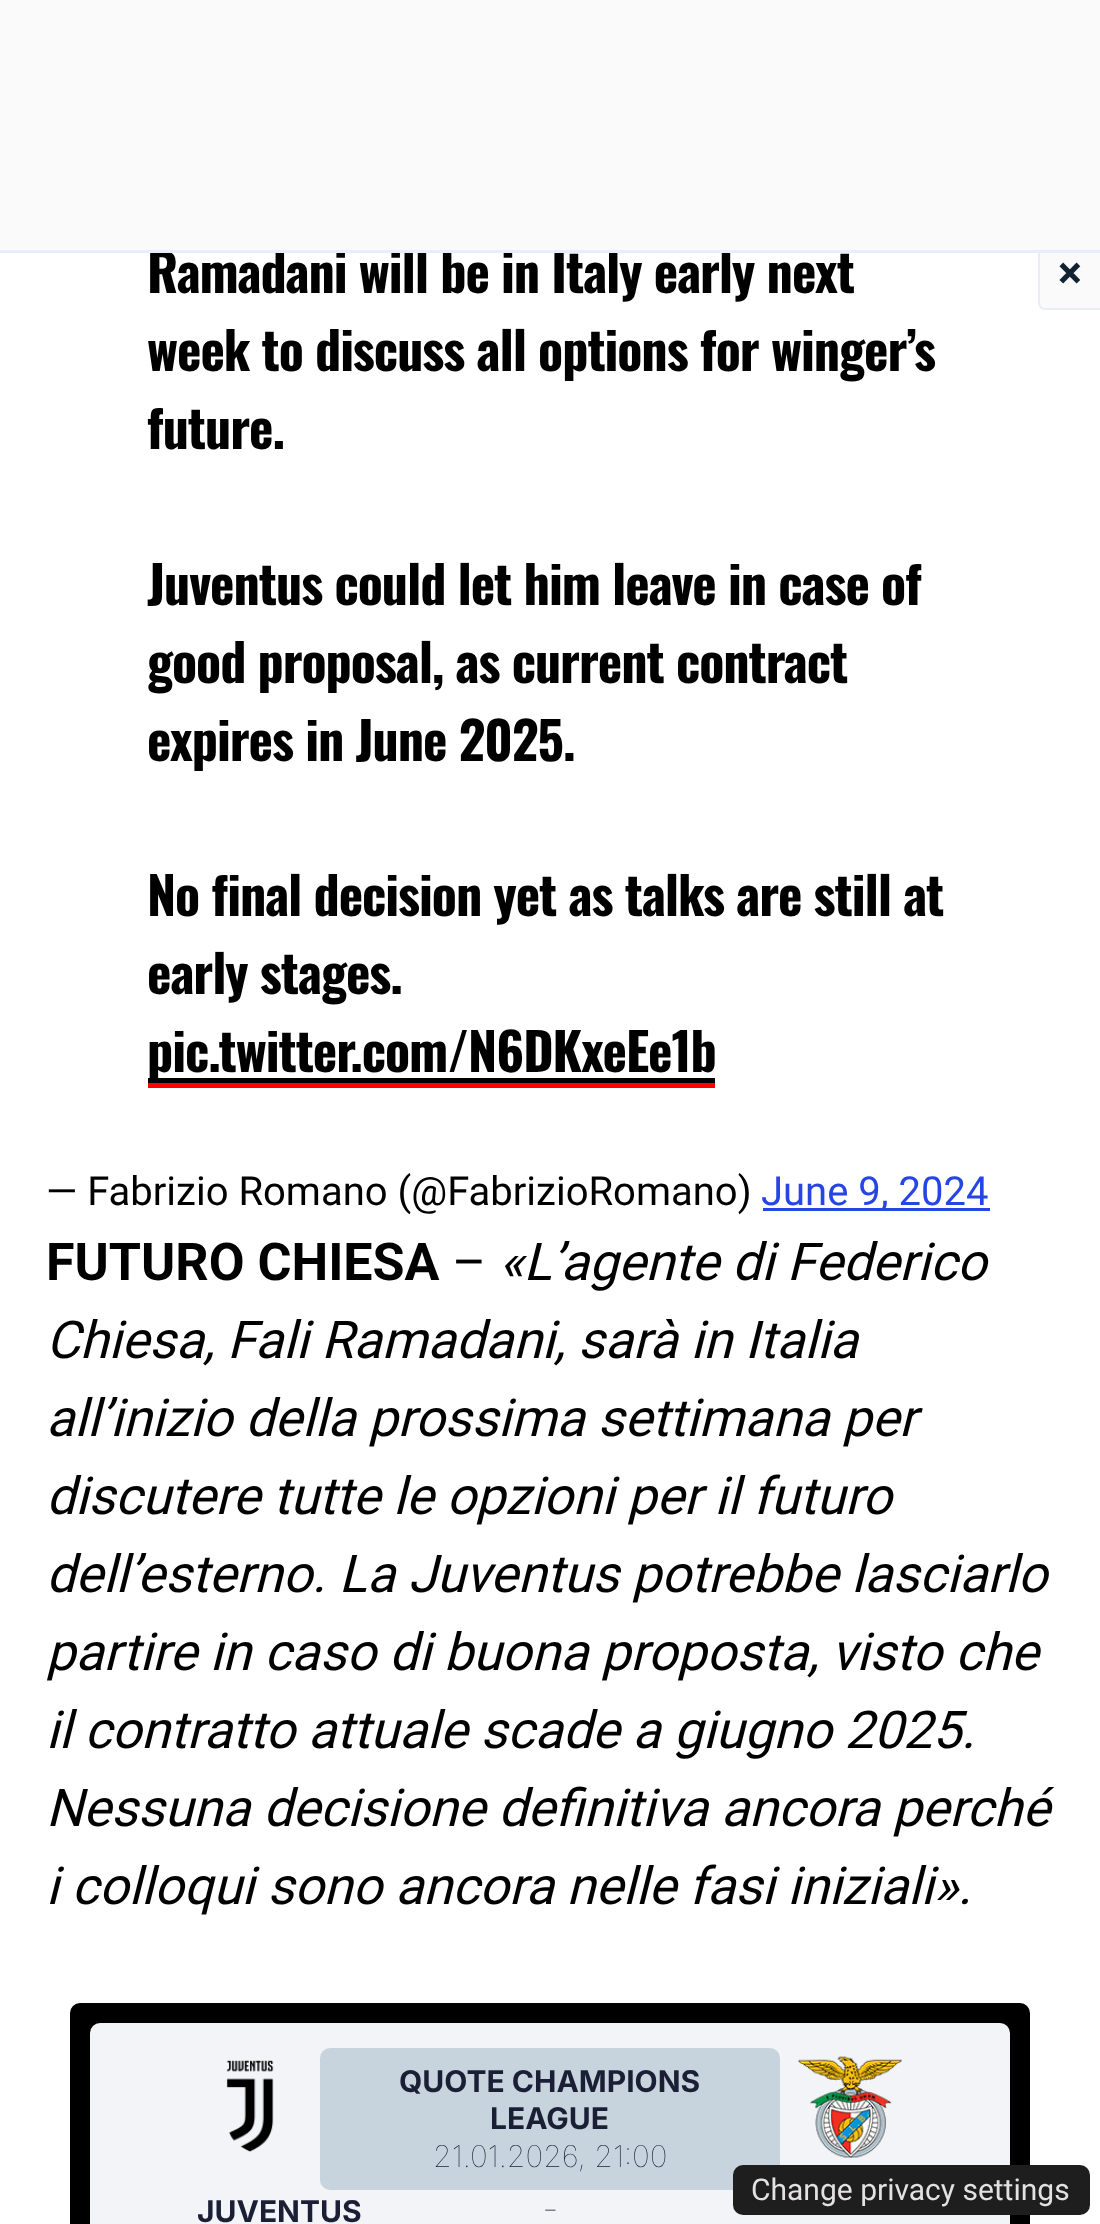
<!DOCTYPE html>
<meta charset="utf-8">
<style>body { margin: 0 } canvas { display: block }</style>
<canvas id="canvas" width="1100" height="2224"></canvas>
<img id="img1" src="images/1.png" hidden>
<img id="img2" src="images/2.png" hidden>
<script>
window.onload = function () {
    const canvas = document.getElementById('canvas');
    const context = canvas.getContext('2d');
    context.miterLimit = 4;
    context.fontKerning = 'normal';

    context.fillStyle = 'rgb(255, 255, 255)';
    context.fillRect(0, 0, 1100, 2224);
    context.fillStyle = 'rgb(255, 0, 0)';
    context.fillRect(148, 1083, 567, 5);
    context.fillStyle = 'rgb(0, 0, 0)';
    context.fillRect(148, 1078, 567, 5);
    context.fillStyle = 'rgb(37, 69, 228)';
    context.fillRect(763, 1208, 227, 3);
    context.fillStyle = 'rgb(0, 0, 0)';
    context.beginPath();
    context.roundRect(70, 2003, 960, 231, 10);
    context.fill();
    context.fillStyle = 'rgb(243, 244, 248)';
    context.beginPath();
    context.roundRect(90, 2023, 920, 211, 10);
    context.fill();
    context.fillStyle = 'rgb(200, 212, 221)';
    context.beginPath();
    context.roundRect(320, 2048, 460, 142, 10);
    context.fill();
    context.drawImage(document.getElementById('img1'), 798, 2056, 104, 102);
    context.drawImage(document.getElementById('img2'), 226, 2060, 48, 92);
    context.fillStyle = 'rgb(250, 250, 250)';
    context.beginPath();
    context.roundRect(1038, 248, 62, 62, [0, 0, 0, 8]);
    context.fill();
    context.fillStyle = 'rgb(232, 238, 249)';
    context.beginPath();
    context.moveTo(1038, 248);
    context.lineTo(1100, 248);
    context.lineTo(1100, 310);
    context.lineTo(1045, 310);
    context.bezierCurveTo(1041, 310, 1038, 307, 1038, 302);
    context.closePath();
    context.moveTo(1040, 248);
    context.lineTo(1100, 248);
    context.lineTo(1100, 308);
    context.lineTo(1045, 308);
    context.bezierCurveTo(1042, 308, 1040, 305, 1040, 302);
    context.closePath();
    context.fill('evenodd');
    context.fillStyle = 'rgb(250, 250, 250)';
    context.fillRect(0, 0, 1100, 250);
    context.fillStyle = 'rgb(30, 30, 30)';
    context.beginPath();
    context.roundRect(733, 2165, 357, 50, 10);
    context.fill();
    context.letterSpacing = '-1.05px';
    context.font = 'bold 52px Oswald';
    context.fillStyle = 'rgb(0, 0, 0)';
    context.fillText('Ramadani will be in Italy early next', 147, 293);
    context.fillText('week to discuss all options for winger’s', 147, 371);
    context.fillText('future.', 147, 449);
    context.fillText('Juventus could let him leave in case of', 147, 605);
    context.fillText('good proposal, as current contract', 147, 683);
    context.fillText('expires in June 2025.', 147, 761);
    context.fillText('No final decision yet as talks are still at', 147, 916);
    context.fillText('early stages.', 147, 994);
    context.fillText('pic.twitter.com/N6DKxeEe1b', 147, 1072);
    context.letterSpacing = '0px';
    context.font = '40px Roboto';
    context.fillText('— Fabrizio Romano (@FabrizioRomano)', 46, 1205);
    context.fillStyle = 'rgb(37, 69, 228)';
    context.fillText('June 9, 2024', 761, 1205);
    context.font = 'bold 52px Roboto';
    context.fillStyle = 'rgb(0, 0, 0)';
    context.fillText('FUTURO CHIESA', 46, 1280);
    context.font = '52px Roboto';
    context.fillText('–', 452, 1280);
    context.font = 'italic 52px Roboto';
    context.fillText('«L’agente di Federico', 499, 1280);
    context.fillText('Chiesa, Fali Ramadani, sarà in Italia', 46, 1358);
    context.fillText('all’inizio della prossima settimana per', 46, 1436);
    context.fillText('discutere tutte le opzioni per il futuro', 46, 1514);
    context.fillText('dell’esterno. La Juventus potrebbe lasciarlo', 46, 1592);
    context.fillText('partire in caso di buona proposta, visto che', 46, 1670);
    context.fillText('il contratto attuale scade a giugno 2025.', 46, 1748);
    context.fillText('Nessuna decisione definitiva ancora perché', 46, 1826);
    context.fillText('i colloqui sono ancora nelle fasi iniziali».', 46, 1904);
    context.font = 'bold 30px Inter';
    context.fillStyle = 'rgb(27, 31, 54)';
    context.fillText('QUOTE CHAMPIONS', 399, 2092);
    context.fillText('LEAGUE', 490, 2129);
    context.font = '100 30px Inter';
    context.fillText('21.01.2026, 21:00', 433, 2167);
    context.font = 'bold 30px Inter';
    context.fillText('JUVENTUS', 197, 2222);
    context.font = '100 38px Inter';
    context.fillText('-', 542, 2222);
    context.fillStyle = 'rgb(232, 238, 249)';
    context.fillRect(0, 250, 1100, 3);
    context.font = 'bold 45px Roboto';
    context.fillStyle = 'rgb(17, 34, 51)';
    context.fillText('×', 1058, 288);
    context.font = '30px Roboto';
    context.fillStyle = 'rgb(227, 225, 225)';
    context.fillText('Change privacy settings', 751, 2200);
};
</script>
